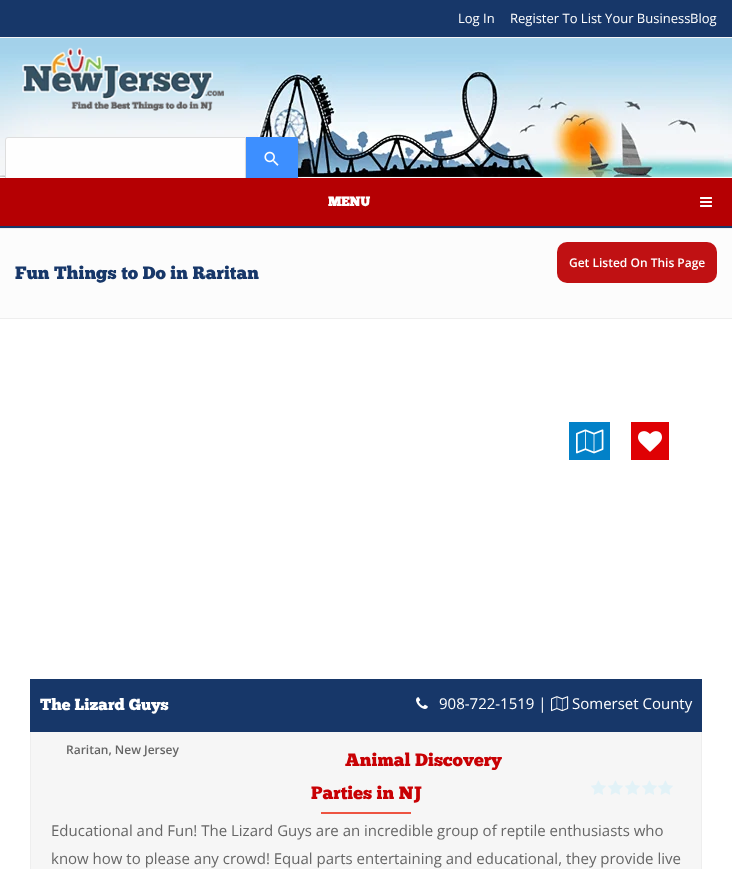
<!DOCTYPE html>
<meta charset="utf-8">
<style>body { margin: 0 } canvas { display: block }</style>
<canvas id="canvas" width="732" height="869"></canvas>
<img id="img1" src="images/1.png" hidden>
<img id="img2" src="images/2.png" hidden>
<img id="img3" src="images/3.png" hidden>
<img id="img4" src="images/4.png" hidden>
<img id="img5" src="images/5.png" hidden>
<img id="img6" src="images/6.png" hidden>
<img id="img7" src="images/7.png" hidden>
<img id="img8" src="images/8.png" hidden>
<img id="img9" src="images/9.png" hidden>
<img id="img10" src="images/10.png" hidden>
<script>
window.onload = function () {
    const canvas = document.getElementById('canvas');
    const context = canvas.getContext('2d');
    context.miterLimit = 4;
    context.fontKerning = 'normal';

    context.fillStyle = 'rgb(255, 255, 255)';
    context.fillRect(0, 0, 732, 869);
    context.fillStyle = 'rgb(23, 55, 105)';
    context.fillRect(0, 0, 732, 37);
    context.fillStyle = 'rgb(245, 245, 245)';
    context.fillRect(0, 37, 732, 1);
    context.drawImage(document.getElementById('img1'), 0, 38, 732, 22);
    context.drawImage(document.getElementById('img2'), 0, 60, 732, 117);
    context.drawImage(document.getElementById('img3'), 22, 47, 202, 64);
    context.fillStyle = 'rgb(254, 254, 254)';
    context.beginPath();
    context.roundRect(5.5, 137.5, 240, 43, [2.5, 0, 0, 2.5]);
    context.fill();
    context.strokeStyle = 'rgb(222, 222, 222)';
    context.stroke();
    context.fillStyle = 'rgba(0, 0, 0, 0.12)';
    context.filter = 'blur(2px)';
    context.beginPath();
    context.roundRect(248, 139, 52, 44, 3);
    context.fill();
    context.filter = 'none';
    context.fillStyle = 'rgb(61, 143, 255)';
    context.beginPath();
    context.roundRect(246, 138, 51, 42, [0, 2, 2, 0]);
    context.fill();
    context.beginPath();
    context.moveTo(246, 137);
    context.lineTo(295, 137);
    context.bezierCurveTo(297, 137, 298, 138, 298, 140);
    context.lineTo(298, 178);
    context.bezierCurveTo(298, 180, 297, 181, 295, 181);
    context.lineTo(246, 181);
    context.closePath();
    context.moveTo(246, 138);
    context.lineTo(295, 138);
    context.bezierCurveTo(296, 138, 297, 139, 297, 140);
    context.lineTo(297, 178);
    context.bezierCurveTo(297, 179, 296, 180, 295, 180);
    context.lineTo(246, 180);
    context.closePath();
    context.fill('evenodd');
    context.drawImage(document.getElementById('img4'), 264, 151, 15, 15);
    context.fillStyle = 'rgb(23, 55, 105)';
    context.fillRect(0, 226, 732, 2);
    context.fillStyle = 'rgb(181, 0, 3)';
    context.fillRect(0, 178, 732, 48);
    context.drawImage(document.getElementById('img5'), 700, 197, 12, 10);
    context.fillStyle = 'rgb(252, 252, 252)';
    context.fillRect(0, 229, 732, 89);
    context.fillStyle = 'rgb(238, 238, 238)';
    context.fillRect(0, 228, 732, 1);
    context.fillRect(0, 318, 732, 1);
    context.fillStyle = 'rgb(192, 17, 19)';
    context.beginPath();
    context.roundRect(557, 242, 160, 41, 10);
    context.fill();
    context.fillStyle = 'rgb(2, 129, 200)';
    context.fillRect(569, 422, 41, 38);
    context.drawImage(document.getElementById('img6'), 576, 429, 28, 25);
    context.fillStyle = 'rgb(223, 1, 4)';
    context.fillRect(631, 422, 38, 38);
    context.drawImage(document.getElementById('img7'), 638, 431, 24, 21);
    context.fillStyle = 'rgb(23, 55, 105)';
    context.fillRect(30, 679, 672, 53);
    context.drawImage(document.getElementById('img8'), 416, 697, 12, 12);
    context.drawImage(document.getElementById('img9'), 551, 696, 18, 16);
    context.fillStyle = 'rgb(246, 246, 246)';
    context.fillRect(31, 732, 670, 137);
    context.fillStyle = 'rgb(238, 238, 238)';
    context.beginPath();
    context.moveTo(702, 732);
    context.lineTo(702, 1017);
    context.lineTo(701, 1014);
    context.lineTo(701, 732);
    context.closePath();
    context.fill();
    context.beginPath();
    context.moveTo(30, 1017);
    context.lineTo(30, 732);
    context.lineTo(31, 732);
    context.lineTo(31, 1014);
    context.closePath();
    context.fill();
    context.fillStyle = 'rgb(237, 84, 65)';
    context.fillRect(321, 812, 90, 2);
    context.drawImage(document.getElementById('img10'), 591, 780, 15, 15);
    context.drawImage(document.getElementById('img10'), 608, 780, 15, 15);
    context.drawImage(document.getElementById('img10'), 625, 780, 15, 15);
    context.drawImage(document.getElementById('img10'), 642, 780, 15, 15);
    context.drawImage(document.getElementById('img10'), 658, 780, 15, 15);
    context.font = '13px Open Sans';
    context.fillStyle = 'rgb(255, 255, 255)';
    context.fillText('Log In', 458, 23);
    context.fillText('Register To List Your Business', 510, 23);
    context.fillText('Blog', 690, 23);
    context.font = 'bold 13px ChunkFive';
    context.fillText('MENU', 328, 206);
    context.font = '600 12px Open Sans';
    context.fillText('Get Listed On This Page', 569, 267);
    context.font = '18px ChunkFive';
    context.fillStyle = 'rgb(23, 55, 105)';
    context.fillText('Fun Things to Do in Raritan', 15, 279);
    context.font = '16px ChunkFive';
    context.fillStyle = 'rgb(255, 255, 255)';
    context.fillText('The Lizard Guys', 40, 710);
    context.font = '15px Open Sans';
    context.fillText('908-722-1519 |', 439, 709);
    context.fillText('Somerset County', 572, 709);
    context.font = '600 12px Open Sans';
    context.fillStyle = 'rgb(102, 102, 102)';
    context.fillText('Raritan, New Jersey', 66, 754);
    context.font = '18px ChunkFive';
    context.fillStyle = 'rgb(200, 1, 4)';
    context.fillText('Animal Discovery', 345, 766);
    context.fillText('Parties in NJ', 311, 799);
    context.font = '15px Open Sans';
    context.fillStyle = 'rgb(102, 102, 102)';
    context.fillText('Educational and Fun! The Lizard Guys are an incredible group of reptile enthusiasts who', 51, 836);
    context.fillText('know how to please any crowd! Equal parts entertaining and educational, they provide live', 51, 864);
};
</script>
